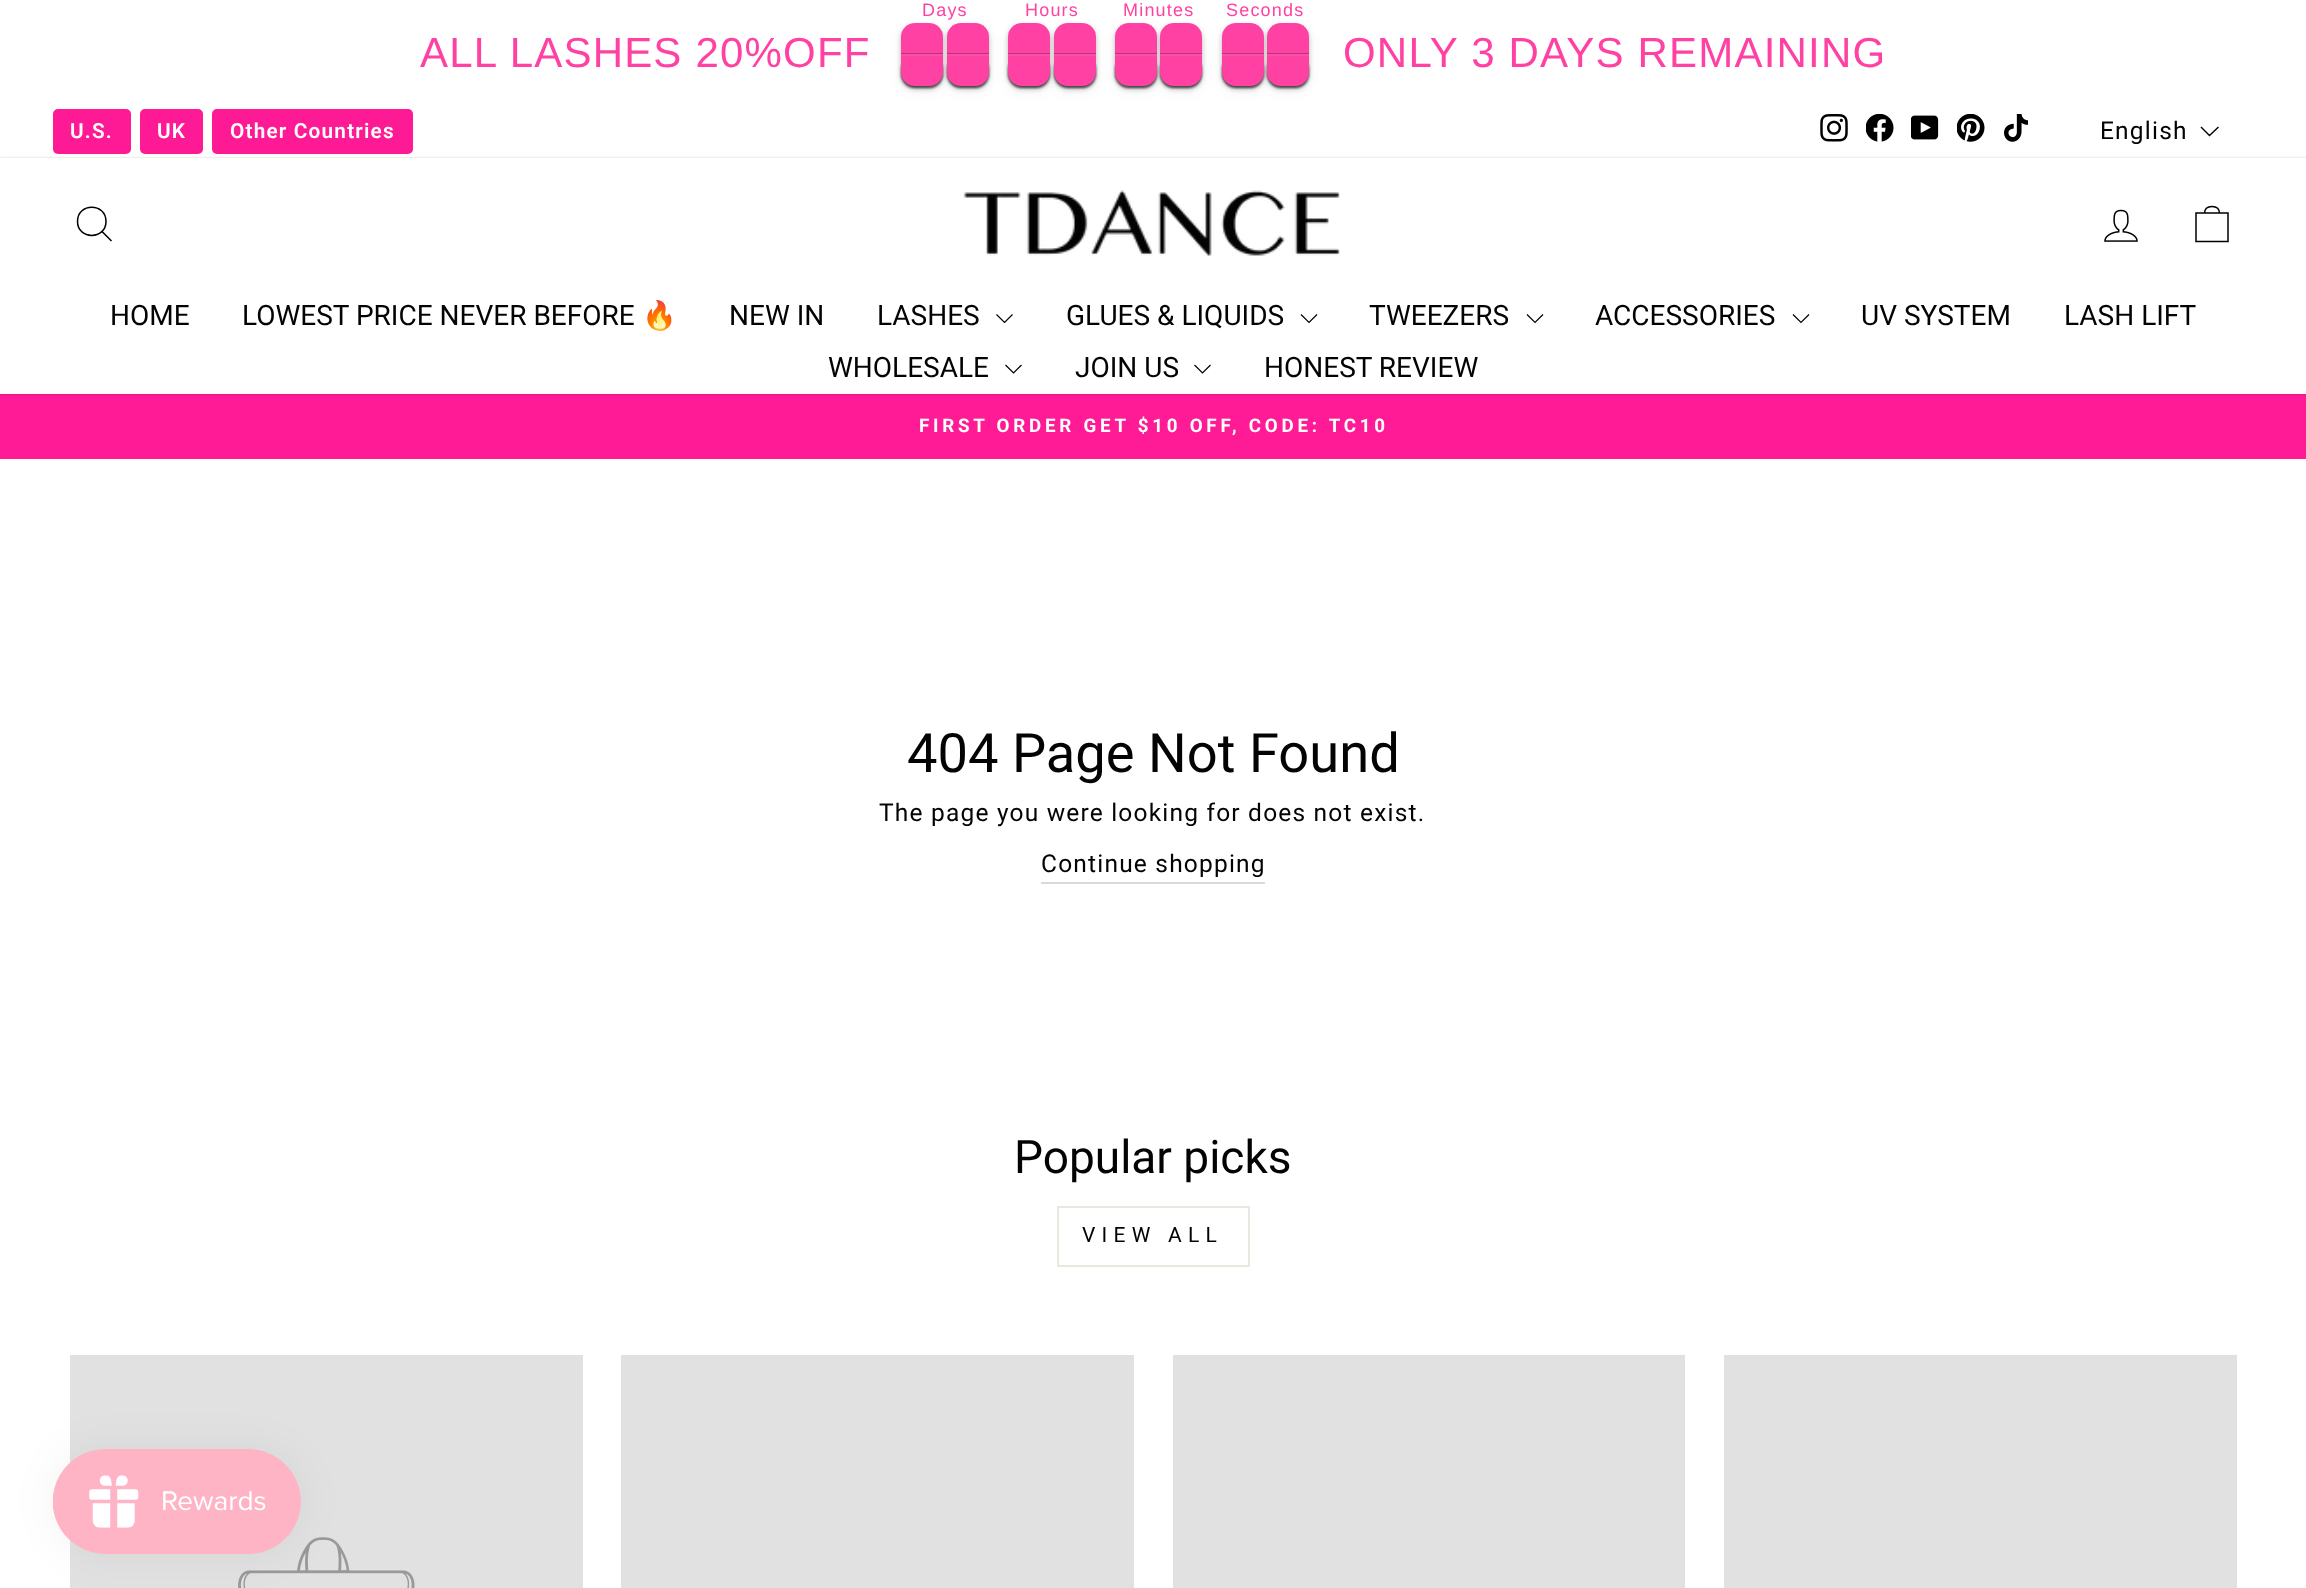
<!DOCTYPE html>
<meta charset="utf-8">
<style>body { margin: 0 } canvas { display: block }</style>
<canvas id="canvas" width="2306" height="1588"></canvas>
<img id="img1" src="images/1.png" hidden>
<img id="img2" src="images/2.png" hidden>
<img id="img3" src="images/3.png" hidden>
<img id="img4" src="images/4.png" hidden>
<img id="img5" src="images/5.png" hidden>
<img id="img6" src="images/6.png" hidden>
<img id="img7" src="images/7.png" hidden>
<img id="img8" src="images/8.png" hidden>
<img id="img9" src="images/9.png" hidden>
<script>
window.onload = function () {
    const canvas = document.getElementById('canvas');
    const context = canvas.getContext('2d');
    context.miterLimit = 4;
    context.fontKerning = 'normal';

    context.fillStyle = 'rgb(255, 255, 255)';
    context.fillRect(0, 0, 2306, 1588);
    context.fillStyle = 'rgba(0, 0, 0, 0.05)';
    context.filter = 'blur(7px)';
    context.beginPath();
    context.roundRect(901, 28, 42, 63, 14);
    context.fill();
    context.filter = 'none';
    context.fillStyle = 'rgba(0, 0, 0, 0.24)';
    context.filter = 'blur(2.5px)';
    context.beginPath();
    context.roundRect(901, 26, 42, 63, 14);
    context.fill();
    context.filter = 'none';
    context.fillStyle = 'rgba(0, 0, 0, 0.4)';
    context.filter = 'blur(1px)';
    context.beginPath();
    context.roundRect(901, 56, 42, 32, 14);
    context.fill();
    context.filter = 'none';
    context.fillStyle = 'rgba(0, 0, 0, 0.05)';
    context.filter = 'blur(7px)';
    context.beginPath();
    context.roundRect(947, 28, 42, 63, 14);
    context.fill();
    context.filter = 'none';
    context.fillStyle = 'rgba(0, 0, 0, 0.24)';
    context.filter = 'blur(2.5px)';
    context.beginPath();
    context.roundRect(947, 26, 42, 63, 14);
    context.fill();
    context.filter = 'none';
    context.fillStyle = 'rgb(255, 65, 163)';
    context.beginPath();
    context.roundRect(901, 23, 42, 31, [14, 14, 0, 0]);
    context.fill();
    context.fillStyle = 'rgba(51, 51, 51, 0.4)';
    context.fillRect(901, 53, 42, 1);
    context.fillStyle = 'rgba(0, 0, 0, 0.4)';
    context.filter = 'blur(1px)';
    context.beginPath();
    context.roundRect(901, 56, 42, 32, 14);
    context.fill();
    context.filter = 'none';
    context.fillStyle = 'rgb(255, 65, 163)';
    context.beginPath();
    context.roundRect(901, 54, 42, 32, [0, 0, 14, 14]);
    context.fill();
    context.fillStyle = 'rgba(204, 204, 204, 0.1)';
    context.fillRect(901, 54, 42, 2);
    context.fillStyle = 'rgba(0, 0, 0, 0.4)';
    context.filter = 'blur(1px)';
    context.beginPath();
    context.roundRect(947, 56, 42, 32, 14);
    context.fill();
    context.filter = 'none';
    context.fillStyle = 'rgba(0, 0, 0, 0.05)';
    context.filter = 'blur(7px)';
    context.beginPath();
    context.roundRect(1008, 28, 42, 63, 14);
    context.fill();
    context.filter = 'none';
    context.fillStyle = 'rgb(255, 65, 163)';
    context.beginPath();
    context.roundRect(947, 23, 42, 31, [14, 14, 0, 0]);
    context.fill();
    context.fillStyle = 'rgba(51, 51, 51, 0.4)';
    context.fillRect(947, 53, 42, 1);
    context.fillStyle = 'rgba(0, 0, 0, 0.4)';
    context.filter = 'blur(1px)';
    context.beginPath();
    context.roundRect(947, 56, 42, 32, 14);
    context.fill();
    context.filter = 'none';
    context.fillStyle = 'rgb(255, 65, 163)';
    context.beginPath();
    context.roundRect(947, 54, 42, 32, [0, 0, 14, 14]);
    context.fill();
    context.fillStyle = 'rgba(204, 204, 204, 0.1)';
    context.fillRect(947, 54, 42, 2);
    context.fillStyle = 'rgba(0, 0, 0, 0.24)';
    context.filter = 'blur(2.5px)';
    context.beginPath();
    context.roundRect(1008, 26, 42, 63, 14);
    context.fill();
    context.filter = 'none';
    context.fillStyle = 'rgba(0, 0, 0, 0.4)';
    context.filter = 'blur(1px)';
    context.beginPath();
    context.roundRect(1008, 56, 42, 32, 14);
    context.fill();
    context.filter = 'none';
    context.fillStyle = 'rgba(0, 0, 0, 0.05)';
    context.filter = 'blur(7px)';
    context.beginPath();
    context.roundRect(1054, 28, 42, 63, 14);
    context.fill();
    context.filter = 'none';
    context.fillStyle = 'rgba(0, 0, 0, 0.24)';
    context.filter = 'blur(2.5px)';
    context.beginPath();
    context.roundRect(1054, 26, 42, 63, 14);
    context.fill();
    context.filter = 'none';
    context.fillStyle = 'rgb(255, 65, 163)';
    context.beginPath();
    context.roundRect(1008, 23, 42, 31, [14, 14, 0, 0]);
    context.fill();
    context.fillStyle = 'rgba(51, 51, 51, 0.4)';
    context.fillRect(1008, 53, 42, 1);
    context.fillStyle = 'rgba(0, 0, 0, 0.4)';
    context.filter = 'blur(1px)';
    context.beginPath();
    context.roundRect(1008, 56, 42, 32, 14);
    context.fill();
    context.filter = 'none';
    context.fillStyle = 'rgb(255, 65, 163)';
    context.beginPath();
    context.roundRect(1008, 54, 42, 32, [0, 0, 14, 14]);
    context.fill();
    context.fillStyle = 'rgba(204, 204, 204, 0.1)';
    context.fillRect(1008, 54, 42, 2);
    context.fillStyle = 'rgba(0, 0, 0, 0.4)';
    context.filter = 'blur(1px)';
    context.beginPath();
    context.roundRect(1054, 56, 42, 32, 14);
    context.fill();
    context.filter = 'none';
    context.fillStyle = 'rgba(0, 0, 0, 0.05)';
    context.filter = 'blur(7px)';
    context.beginPath();
    context.roundRect(1115, 28, 42, 63, 14);
    context.fill();
    context.filter = 'none';
    context.fillStyle = 'rgb(255, 65, 163)';
    context.beginPath();
    context.roundRect(1054, 23, 42, 31, [14, 14, 0, 0]);
    context.fill();
    context.fillStyle = 'rgba(51, 51, 51, 0.4)';
    context.fillRect(1054, 53, 42, 1);
    context.fillStyle = 'rgba(0, 0, 0, 0.4)';
    context.filter = 'blur(1px)';
    context.beginPath();
    context.roundRect(1054, 56, 42, 32, 14);
    context.fill();
    context.filter = 'none';
    context.fillStyle = 'rgb(255, 65, 163)';
    context.beginPath();
    context.roundRect(1054, 54, 42, 32, [0, 0, 14, 14]);
    context.fill();
    context.fillStyle = 'rgba(204, 204, 204, 0.1)';
    context.fillRect(1054, 54, 42, 2);
    context.fillStyle = 'rgba(0, 0, 0, 0.24)';
    context.filter = 'blur(2.5px)';
    context.beginPath();
    context.roundRect(1115, 26, 42, 63, 14);
    context.fill();
    context.filter = 'none';
    context.fillStyle = 'rgba(0, 0, 0, 0.4)';
    context.filter = 'blur(1px)';
    context.beginPath();
    context.roundRect(1115, 56, 42, 32, 14);
    context.fill();
    context.filter = 'none';
    context.fillStyle = 'rgba(0, 0, 0, 0.05)';
    context.filter = 'blur(7px)';
    context.beginPath();
    context.roundRect(1160, 28, 42, 63, 14);
    context.fill();
    context.filter = 'none';
    context.fillStyle = 'rgba(0, 0, 0, 0.24)';
    context.filter = 'blur(2.5px)';
    context.beginPath();
    context.roundRect(1160, 26, 42, 63, 14);
    context.fill();
    context.filter = 'none';
    context.fillStyle = 'rgba(0, 0, 0, 0.4)';
    context.filter = 'blur(1px)';
    context.beginPath();
    context.roundRect(1160, 56, 42, 32, 14);
    context.fill();
    context.filter = 'none';
    context.fillStyle = 'rgb(255, 65, 163)';
    context.beginPath();
    context.roundRect(1115, 23, 42, 31, [14, 14, 0, 0]);
    context.fill();
    context.fillStyle = 'rgba(51, 51, 51, 0.4)';
    context.fillRect(1115, 53, 42, 1);
    context.fillStyle = 'rgba(0, 0, 0, 0.4)';
    context.filter = 'blur(1px)';
    context.beginPath();
    context.roundRect(1115, 56, 42, 32, 14);
    context.fill();
    context.filter = 'none';
    context.fillStyle = 'rgb(255, 65, 163)';
    context.beginPath();
    context.roundRect(1115, 54, 42, 32, [0, 0, 14, 14]);
    context.fill();
    context.fillStyle = 'rgba(204, 204, 204, 0.1)';
    context.fillRect(1115, 54, 42, 2);
    context.fillStyle = 'rgba(0, 0, 0, 0.05)';
    context.filter = 'blur(7px)';
    context.beginPath();
    context.roundRect(1222, 28, 42, 63, 14);
    context.fill();
    context.filter = 'none';
    context.fillStyle = 'rgb(255, 65, 163)';
    context.beginPath();
    context.roundRect(1160, 23, 42, 31, [14, 14, 0, 0]);
    context.fill();
    context.fillStyle = 'rgba(51, 51, 51, 0.4)';
    context.fillRect(1160, 53, 42, 1);
    context.fillStyle = 'rgba(0, 0, 0, 0.4)';
    context.filter = 'blur(1px)';
    context.beginPath();
    context.roundRect(1160, 56, 42, 32, 14);
    context.fill();
    context.filter = 'none';
    context.fillStyle = 'rgb(255, 65, 163)';
    context.beginPath();
    context.roundRect(1160, 54, 42, 32, [0, 0, 14, 14]);
    context.fill();
    context.fillStyle = 'rgba(204, 204, 204, 0.1)';
    context.fillRect(1160, 54, 42, 2);
    context.fillStyle = 'rgba(0, 0, 0, 0.24)';
    context.filter = 'blur(2.5px)';
    context.beginPath();
    context.roundRect(1222, 26, 42, 63, 14);
    context.fill();
    context.filter = 'none';
    context.fillStyle = 'rgba(0, 0, 0, 0.4)';
    context.filter = 'blur(1px)';
    context.beginPath();
    context.roundRect(1222, 56, 42, 32, 14);
    context.fill();
    context.filter = 'none';
    context.fillStyle = 'rgba(0, 0, 0, 0.05)';
    context.filter = 'blur(7px)';
    context.beginPath();
    context.roundRect(1267, 28, 42, 63, 14);
    context.fill();
    context.filter = 'none';
    context.fillStyle = 'rgba(0, 0, 0, 0.24)';
    context.filter = 'blur(2.5px)';
    context.beginPath();
    context.roundRect(1267, 26, 42, 63, 14);
    context.fill();
    context.filter = 'none';
    context.fillStyle = 'rgba(0, 0, 0, 0.4)';
    context.filter = 'blur(1px)';
    context.beginPath();
    context.roundRect(1267, 56, 42, 32, 14);
    context.fill();
    context.filter = 'none';
    context.fillStyle = 'rgb(255, 65, 163)';
    context.beginPath();
    context.roundRect(1222, 23, 42, 31, [14, 14, 0, 0]);
    context.fill();
    context.fillStyle = 'rgba(51, 51, 51, 0.4)';
    context.fillRect(1222, 53, 42, 1);
    context.fillStyle = 'rgba(0, 0, 0, 0.4)';
    context.filter = 'blur(1px)';
    context.beginPath();
    context.roundRect(1222, 56, 42, 32, 14);
    context.fill();
    context.filter = 'none';
    context.fillStyle = 'rgb(255, 65, 163)';
    context.beginPath();
    context.roundRect(1222, 54, 42, 32, [0, 0, 14, 14]);
    context.fill();
    context.fillStyle = 'rgba(204, 204, 204, 0.1)';
    context.fillRect(1222, 54, 42, 2);
    context.fillStyle = 'rgb(255, 65, 163)';
    context.beginPath();
    context.roundRect(1267, 23, 42, 31, [14, 14, 0, 0]);
    context.fill();
    context.fillStyle = 'rgba(51, 51, 51, 0.4)';
    context.fillRect(1267, 53, 42, 1);
    context.fillStyle = 'rgba(0, 0, 0, 0.4)';
    context.filter = 'blur(1px)';
    context.beginPath();
    context.roundRect(1267, 56, 42, 32, 14);
    context.fill();
    context.filter = 'none';
    context.fillStyle = 'rgb(255, 65, 163)';
    context.beginPath();
    context.roundRect(1267, 54, 42, 32, [0, 0, 14, 14]);
    context.fill();
    context.fillStyle = 'rgba(204, 204, 204, 0.1)';
    context.fillRect(1267, 54, 42, 2);
    context.fillStyle = 'rgb(255, 26, 149)';
    context.beginPath();
    context.roundRect(53, 109, 78, 45, 5);
    context.fill();
    context.beginPath();
    context.roundRect(140, 109, 63, 45, 5);
    context.fill();
    context.beginPath();
    context.roundRect(212, 109, 201, 45, 5);
    context.fill();
    context.drawImage(document.getElementById('img1'), 1820, 114, 28, 28);
    context.drawImage(document.getElementById('img2'), 1866, 114, 28, 28);
    context.drawImage(document.getElementById('img3'), 1911, 115, 28, 25);
    context.drawImage(document.getElementById('img4'), 1957, 114, 28, 28);
    context.drawImage(document.getElementById('img5'), 2004, 114, 24, 28);
    context.beginPath();
    context.moveTo(2201, 127);
    context.lineTo(2209.5, 135.5);
    context.lineTo(2218.5, 127);
    context.strokeStyle = 'rgb(0, 0, 0)';
    context.lineWidth = 1.4;
    context.stroke();
    context.fillStyle = 'rgb(255, 26, 150)';
    context.fillRect(0, 394, 2306, 65);
    context.fillStyle = 'rgba(0, 0, 0, 0.2)';
    context.filter = 'blur(1px)';
    context.beginPath();
    context.rect(0, 158, 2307, 236);
    context.fill();
    context.filter = 'none';
    context.fillStyle = 'rgb(255, 255, 255)';
    context.fillRect(0, 158, 2306, 236);
    context.beginPath();
    context.moveTo(106, 221.5);
    context.bezierCurveTo(106, 240, 77.5, 240, 77.5, 221.5);
    context.bezierCurveTo(77.5, 202.5, 106, 202.5, 106, 221.5);
    context.closePath();
    context.moveTo(111.5, 241);
    context.lineTo(102, 231.5);
    context.lineWidth = 1.5;
    context.stroke();
    context.drawImage(document.getElementById('img6'), 963, 190, 377, 66);
    context.drawImage(document.getElementById('img7'), 2104, 209, 34, 33);
    context.beginPath();
    context.moveTo(2196, 213);
    context.lineTo(2228, 213);
    context.lineTo(2228, 241.5);
    context.lineTo(2196, 241.5);
    context.closePath();
    context.moveTo(2204.5, 213.5);
    context.bezierCurveTo(2204.5, 208, 2208, 206.5, 2212, 206.5);
    context.bezierCurveTo(2216, 206.5, 2219.5, 208, 2219.5, 213.5);
    context.stroke();
    context.beginPath();
    context.moveTo(996.5, 314.5);
    context.lineTo(1004.5, 322.5);
    context.lineTo(1012.5, 314.5);
    context.lineWidth = 1.2;
    context.stroke();
    context.beginPath();
    context.moveTo(1301, 314.5);
    context.lineTo(1309, 322.5);
    context.lineTo(1317, 314.5);
    context.stroke();
    context.beginPath();
    context.moveTo(1527, 314.5);
    context.lineTo(1535, 322.5);
    context.lineTo(1543, 314.5);
    context.stroke();
    context.beginPath();
    context.moveTo(1793, 314.5);
    context.lineTo(1801, 322.5);
    context.lineTo(1809, 314.5);
    context.stroke();
    context.beginPath();
    context.moveTo(1005.5, 365);
    context.lineTo(1013.5, 373);
    context.lineTo(1021.5, 365);
    context.stroke();
    context.beginPath();
    context.moveTo(1194.5, 365);
    context.lineTo(1202.5, 373);
    context.lineTo(1210.5, 365);
    context.stroke();
    context.fillStyle = 'rgb(217, 217, 217)';
    context.fillRect(1041, 882, 224, 2);
    context.strokeStyle = 'rgb(232, 232, 225)';
    context.lineWidth = 2;
    context.strokeRect(1058, 1207, 191, 59);
    context.fillStyle = 'rgb(225, 225, 225)';
    context.fillRect(70, 1355, 513, 233);
    context.drawImage(document.getElementById('img8'), 238, 1537, 177, 51);
    context.fillRect(621, 1355, 513, 233);
    context.fillRect(1173, 1355, 512, 233);
    context.fillRect(1724, 1355, 513, 233);
    context.fillStyle = 'rgba(0, 0, 0, 0.05)';
    context.filter = 'blur(22px)';
    context.beginPath();
    context.roundRect(53, 1449, 248, 105, 52.5);
    context.fill();
    context.filter = 'none';
    context.drawImage(document.getElementById('img9'), 52, 1449, 249, 105);
    context.letterSpacing = '1.2px';
    context.font = '18px Liberation Sans';
    context.fillStyle = 'rgb(255, 65, 163)';
    context.fillText('Days', 922, 16);
    context.fillText('Hours', 1025, 16);
    context.fillText('Minutes', 1123, 16);
    context.fillText('Seconds', 1226, 16);
    context.font = '42px Liberation Sans';
    context.fillText('ALL LASHES 20%OFF', 420, 67);
    context.fillText('ONLY 3 DAYS REMAINING', 1343, 67);
    context.font = '600 20.75px Roboto';
    context.fillStyle = 'rgb(255, 255, 255)';
    context.fillText('U.S.', 70, 138);
    context.fillText('UK', 157, 138);
    context.fillText('Other Countries', 230, 138);
    context.font = '24.5px Roboto';
    context.fillStyle = 'rgb(3, 3, 3)';
    context.fillText('English', 2100, 139);
    context.letterSpacing = '0px';
    context.font = '28px Roboto';
    context.fillText('HOME', 110, 325);
    context.fillText('LOWEST PRICE NEVER BEFORE', 242, 325);
    context.font = '28px Noto Color Emoji';
    context.fillText('🔥', 642, 325);
    context.font = '28px Roboto';
    context.fillText('NEW IN', 729, 325);
    context.fillText('LASHES', 877, 325);
    context.fillText('GLUES & LIQUIDS', 1066, 325);
    context.fillText('TWEEZERS', 1369, 325);
    context.fillText('ACCESSORIES', 1595, 325);
    context.fillText('UV SYSTEM', 1861, 325);
    context.fillText('LASH LIFT', 2064, 325);
    context.fillText('WHOLESALE', 828, 377);
    context.fillText('JOIN US', 1075, 377);
    context.fillText('HONEST REVIEW', 1264, 377);
    context.letterSpacing = '3.75px';
    context.font = 'bold 18.75px Roboto';
    context.fillStyle = 'rgb(255, 255, 255)';
    context.fillText('FIRST ORDER GET $10 OFF, CODE: TC10', 919, 432);
    context.letterSpacing = '0px';
    context.font = '54.25px Roboto';
    context.fillStyle = 'rgb(3, 3, 3)';
    context.fillText('404 Page Not Found', 907, 772);
    context.letterSpacing = '1.2px';
    context.font = '24.5px Roboto';
    context.fillText('The page you were looking for does not exist.', 879, 821);
    context.fillText('Continue shopping', 1041, 872);
    context.letterSpacing = '0px';
    context.font = '46px Roboto';
    context.fillText('Popular picks', 1014, 1173);
    context.letterSpacing = '6.25px';
    context.font = '21px Roboto';
    context.fillText('VIEW ALL', 1082, 1242);
};
</script>
